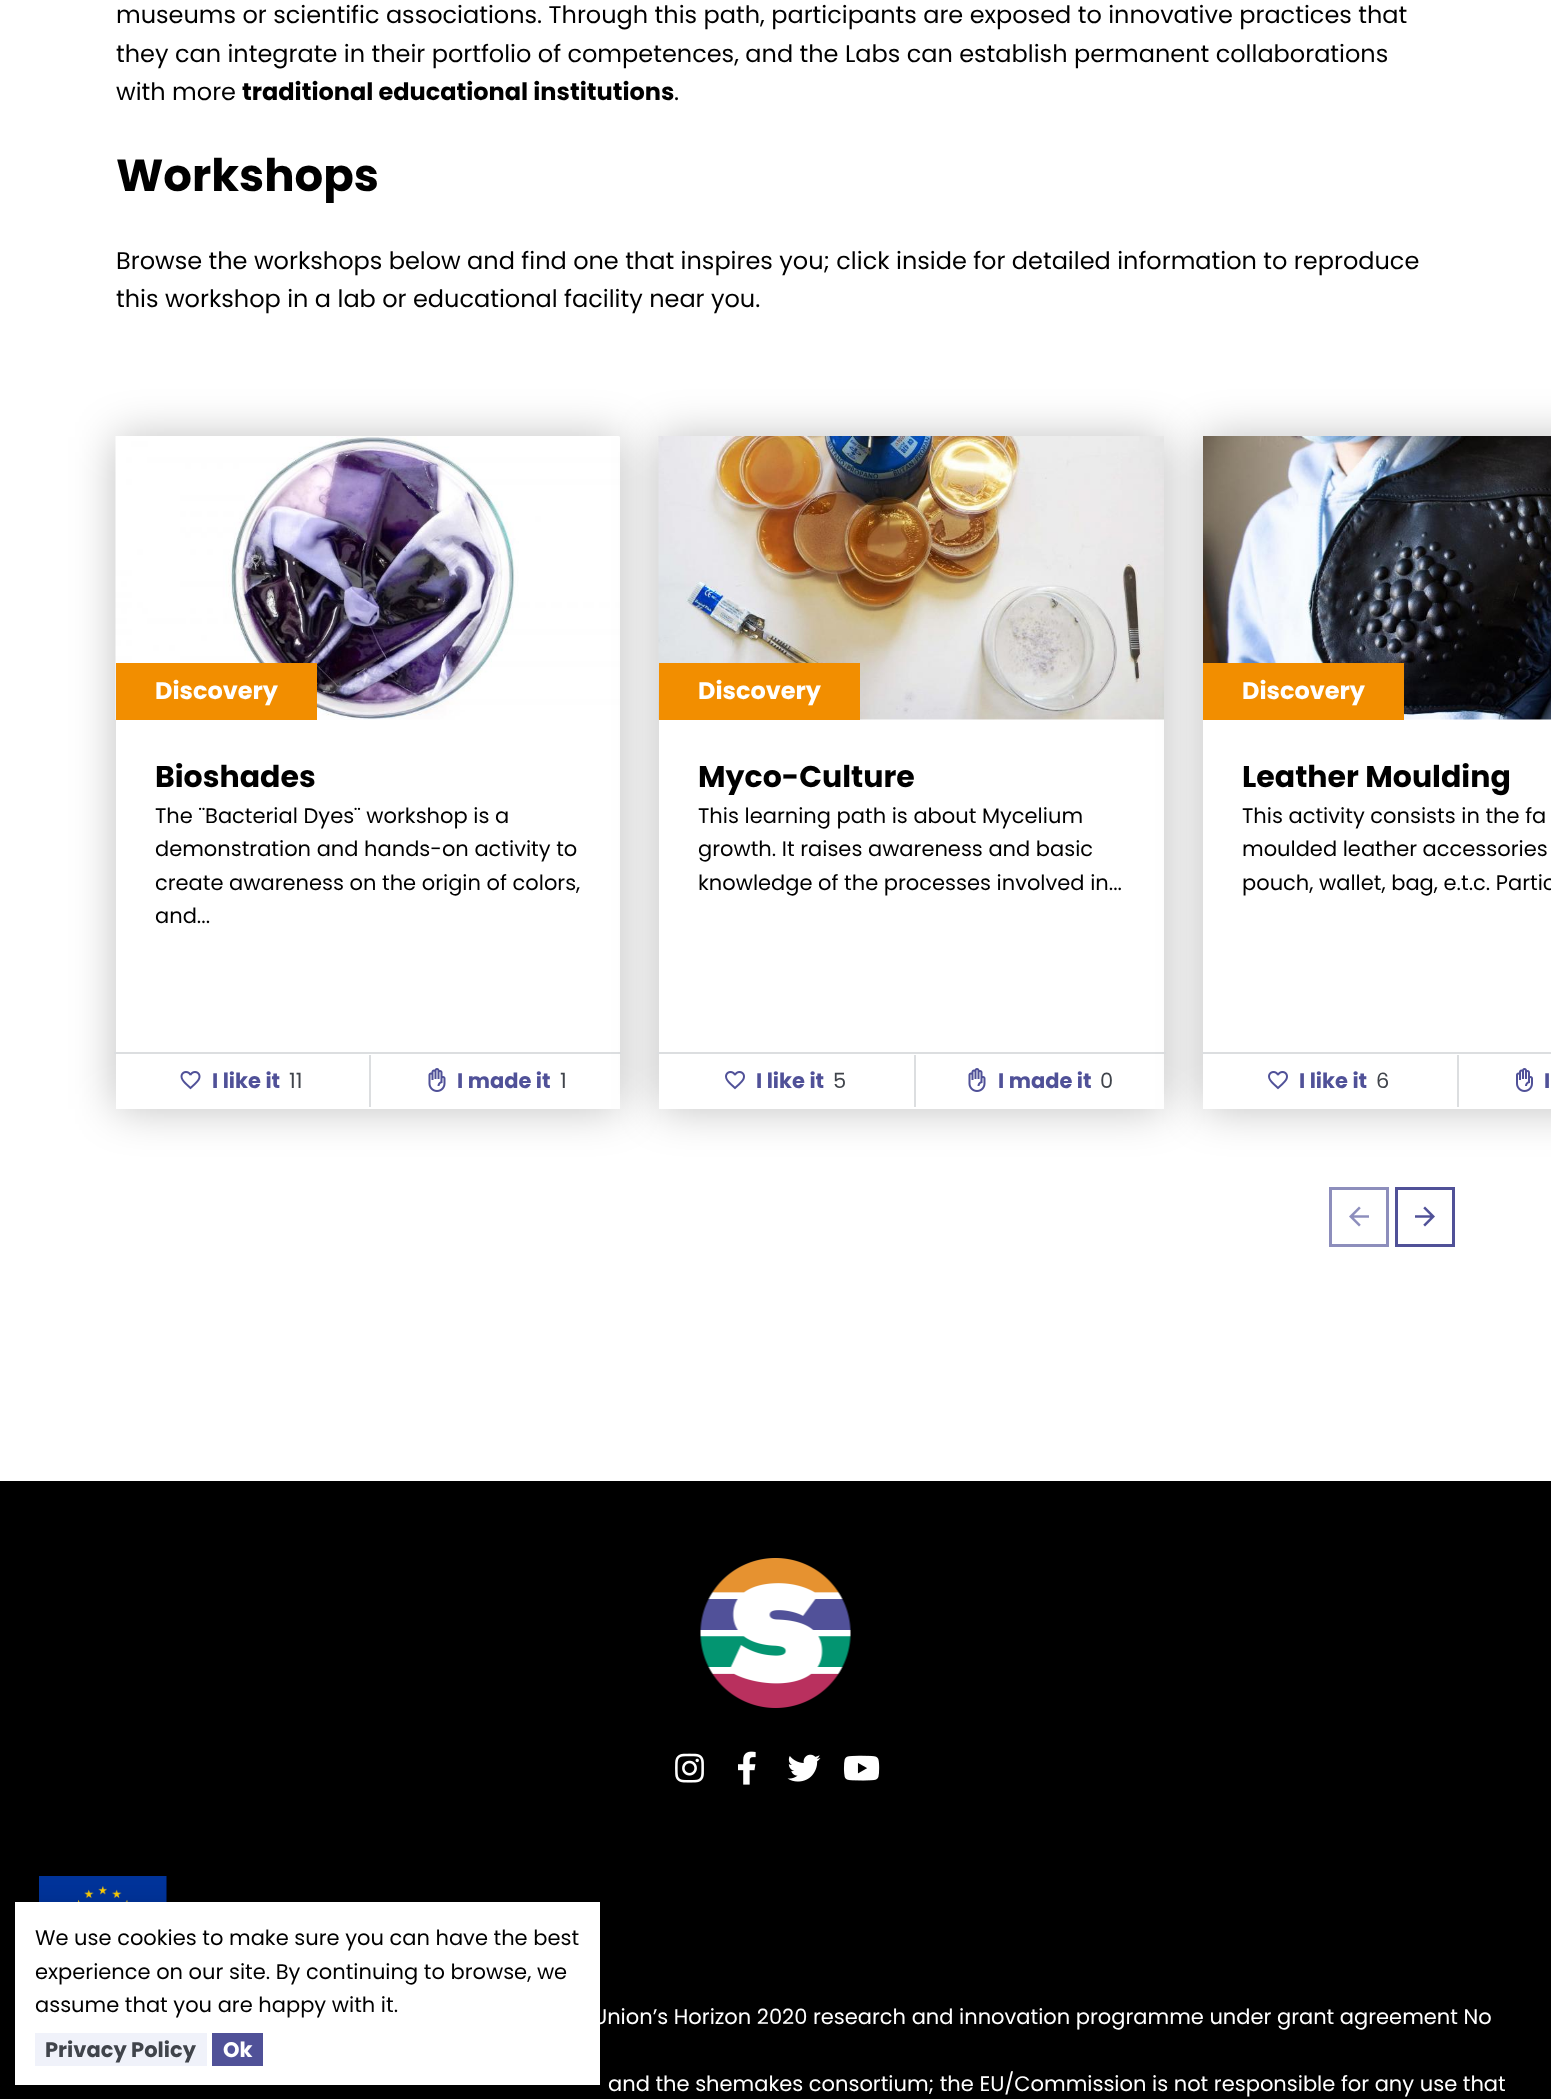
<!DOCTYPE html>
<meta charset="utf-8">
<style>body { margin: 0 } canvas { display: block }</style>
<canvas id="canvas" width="1551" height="2099"></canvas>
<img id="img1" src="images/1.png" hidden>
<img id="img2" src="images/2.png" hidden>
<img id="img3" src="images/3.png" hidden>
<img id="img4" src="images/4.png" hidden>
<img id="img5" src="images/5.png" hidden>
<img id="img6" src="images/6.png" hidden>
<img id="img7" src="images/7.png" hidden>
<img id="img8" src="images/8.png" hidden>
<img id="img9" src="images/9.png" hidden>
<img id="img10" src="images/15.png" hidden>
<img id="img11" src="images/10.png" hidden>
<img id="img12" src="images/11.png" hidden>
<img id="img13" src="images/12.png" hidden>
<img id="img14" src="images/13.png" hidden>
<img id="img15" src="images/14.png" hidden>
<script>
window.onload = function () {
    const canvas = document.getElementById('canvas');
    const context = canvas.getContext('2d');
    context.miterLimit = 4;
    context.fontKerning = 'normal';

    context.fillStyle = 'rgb(255, 255, 255)';
    context.fillRect(0, 0, 1551, 2099);
    context.fillStyle = 'rgba(0, 0, 0, 0.25)';
    context.filter = 'blur(22.5px)';
    context.beginPath();
    context.rect(116, 437, 504, 672);
    context.fill();
    context.filter = 'none';
    context.fillStyle = 'rgb(255, 255, 255)';
    context.fillRect(116, 437, 504, 672);
    context.drawImage(document.getElementById('img1'), 115, 436, 505, 284);
    context.fillStyle = 'rgb(242, 142, 0)';
    context.fillRect(116, 663, 201, 57);
    context.fillStyle = 'rgb(220, 222, 224)';
    context.fillRect(114, 1052, 507, 2);
    context.drawImage(document.getElementById('img2'), 180, 1071, 21, 19);
    context.fillRect(369, 1055, 2, 52);
    context.drawImage(document.getElementById('img3'), 428, 1068, 18, 24);
    context.fillStyle = 'rgba(0, 0, 0, 0.25)';
    context.filter = 'blur(22.5px)';
    context.beginPath();
    context.rect(659, 437, 505, 672);
    context.fill();
    context.filter = 'none';
    context.fillStyle = 'rgb(255, 255, 255)';
    context.fillRect(659, 719, 505, 390);
    context.drawImage(document.getElementById('img4'), 658, 436, 506, 284);
    context.fillStyle = 'rgb(242, 142, 0)';
    context.fillRect(659, 663, 201, 57);
    context.fillStyle = 'rgb(220, 222, 224)';
    context.fillRect(657, 1052, 509, 2);
    context.drawImage(document.getElementById('img5'), 725, 1071, 20, 19);
    context.fillRect(914, 1055, 2, 52);
    context.drawImage(document.getElementById('img3'), 968, 1068, 18, 24);
    context.fillStyle = 'rgba(0, 0, 0, 0.25)';
    context.filter = 'blur(22.5px)';
    context.beginPath();
    context.rect(1203, 437, 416, 672);
    context.fill();
    context.filter = 'none';
    context.fillStyle = 'rgb(255, 255, 255)';
    context.fillRect(1203, 719, 348, 390);
    context.drawImage(document.getElementById('img6'), 1203, 436, 348, 284);
    context.fillStyle = 'rgb(242, 142, 0)';
    context.fillRect(1203, 663, 201, 57);
    context.fillStyle = 'rgb(220, 222, 224)';
    context.fillRect(1202, 1052, 349, 2);
    context.drawImage(document.getElementById('img5'), 1268, 1071, 20, 19);
    context.fillRect(1457, 1055, 2, 52);
    context.drawImage(document.getElementById('img7'), 1516, 1068, 17, 24);
    context.strokeStyle = 'rgb(141, 142, 188)';
    context.lineWidth = 3;
    context.strokeRect(1330.5, 1188.5, 57, 57);
    context.drawImage(document.getElementById('img8'), 1349, 1206, 20, 21);
    context.strokeStyle = 'rgb(80, 81, 152)';
    context.strokeRect(1396.5, 1188.5, 57, 57);
    context.drawImage(document.getElementById('img9'), 1415, 1206, 20, 21);
    context.fillStyle = 'rgb(0, 0, 0)';
    context.fillRect(0, 1481, 1551, 618);
    context.drawImage(document.getElementById('img10'), 39, 1876, 128, 26);
    context.fillStyle = 'rgba(0, 0, 0, 0.2)';
    context.filter = 'blur(11px)';
    context.beginPath();
    context.rect(14, 1908, 588, 186);
    context.fill();
    context.filter = 'none';
    context.fillStyle = 'rgb(255, 255, 255)';
    context.fillRect(15, 1902, 585, 183);
    context.fillStyle = 'rgb(240, 242, 250)';
    context.fillRect(35, 2033, 172, 33);
    context.fillStyle = 'rgb(80, 81, 152)';
    context.fillRect(212, 2033, 51, 33);
    context.drawImage(document.getElementById('img11'), 700, 1558, 151, 150);
    context.drawImage(document.getElementById('img12'), 675, 1753, 29, 30);
    context.drawImage(document.getElementById('img13'), 738, 1751, 18, 34);
    context.drawImage(document.getElementById('img14'), 787, 1754, 34, 28);
    context.drawImage(document.getElementById('img15'), 843, 1755, 37, 26);
    context.font = '24px Poppins';
    context.fillStyle = 'rgb(0, 0, 0)';
    context.fillText('museums or scientific associations. Through this path, participants are exposed to innovative practices that', 116, 23);
    context.fillText('they can integrate in their portfolio of competences, and the Labs can establish permanent collaborations', 116, 62);
    context.fillText('with more', 116, 100);
    context.font = 'bold 24px Poppins';
    context.fillText('traditional educational institutions', 242, 100);
    context.font = '24px Poppins';
    context.fillText('.', 674, 100);
    context.font = 'bold 45px Poppins';
    context.fillText('Workshops', 116, 191);
    context.font = '24px Poppins';
    context.fillText('Browse the workshops below and find one that inspires you; click inside for detailed information to reproduce', 116, 269);
    context.fillText('this workshop in a lab or educational facility near you.', 116, 307);
    context.font = 'bold 24px Poppins';
    context.fillStyle = 'rgb(255, 255, 255)';
    context.fillText('Discovery', 155, 699);
    context.font = 'bold 30px Poppins';
    context.fillStyle = 'rgb(0, 0, 0)';
    context.fillText('Bioshades', 155, 787);
    context.font = '21px Poppins';
    context.fillText('The ¨Bacterial Dyes¨ workshop is a', 155, 823);
    context.fillText('demonstration and hands-on activity to', 155, 856);
    context.fillText('create awareness on the origin of colors,', 155, 890);
    context.fillText('and...', 155, 923);
    context.font = 'bold 21px Poppins';
    context.fillStyle = 'rgb(80, 81, 152)';
    context.fillText('I like it', 212, 1088);
    context.font = '21px Poppins';
    context.fillStyle = 'rgb(64, 68, 75)';
    context.fillText('11', 289, 1088);
    context.font = 'bold 21px Poppins';
    context.fillStyle = 'rgb(80, 81, 152)';
    context.fillText('I made it', 457, 1088);
    context.font = '21px Poppins';
    context.fillStyle = 'rgb(64, 68, 75)';
    context.fillText('1', 560, 1088);
    context.font = 'bold 24px Poppins';
    context.fillStyle = 'rgb(255, 255, 255)';
    context.fillText('Discovery', 698, 699);
    context.font = 'bold 30px Poppins';
    context.fillStyle = 'rgb(0, 0, 0)';
    context.fillText('Myco-Culture', 698, 787);
    context.font = '21px Poppins';
    context.fillText('This learning path is about Mycelium', 698, 823);
    context.fillText('growth. It raises awareness and basic', 698, 856);
    context.fillText('knowledge of the processes involved in...', 698, 890);
    context.font = 'bold 21px Poppins';
    context.fillStyle = 'rgb(80, 81, 152)';
    context.fillText('I like it', 756, 1088);
    context.font = '21px Poppins';
    context.fillStyle = 'rgb(64, 68, 75)';
    context.fillText('5', 833, 1088);
    context.font = 'bold 21px Poppins';
    context.fillStyle = 'rgb(80, 81, 152)';
    context.fillText('I made it', 998, 1088);
    context.font = '21px Poppins';
    context.fillStyle = 'rgb(64, 68, 75)';
    context.fillText('0', 1100, 1088);
    context.font = 'bold 24px Poppins';
    context.fillStyle = 'rgb(255, 255, 255)';
    context.fillText('Discovery', 1242, 699);
    context.font = 'bold 30px Poppins';
    context.fillStyle = 'rgb(0, 0, 0)';
    context.fillText('Leather Moulding', 1242, 787);
    context.font = '21px Poppins';
    context.fillText('This activity consists in the fa', 1242, 823);
    context.fillText('moulded leather accessories', 1242, 856);
    context.fillText('pouch, wallet, bag, e.t.c. Partic', 1242, 890);
    context.font = 'bold 21px Poppins';
    context.fillStyle = 'rgb(80, 81, 152)';
    context.fillText('I like it', 1299, 1088);
    context.font = '21px Poppins';
    context.fillStyle = 'rgb(64, 68, 75)';
    context.fillText('6', 1376, 1088);
    context.font = 'bold 21px Poppins';
    context.fillStyle = 'rgb(80, 81, 152)';
    context.fillText('I', 1544, 1088);
    context.font = '21px Poppins';
    context.fillStyle = 'rgb(0, 0, 0)';
    context.fillText('We use cookies to make sure you can have the best', 35, 1945);
    context.fillText('experience on our site. By continuing to browse, we', 35, 1979);
    context.fillText('assume that you are happy with it.', 35, 2012);
    context.font = 'bold 21px Poppins';
    context.fillStyle = 'rgb(64, 68, 75)';
    context.fillText('Privacy Policy', 45, 2057);
    context.fillStyle = 'rgb(255, 255, 255)';
    context.fillText('Ok', 223, 2057);
    context.font = '21px Poppins';
    context.fillText('Union’s Horizon 2020 research and innovation programme under grant agreement No', 593, 2024);
    context.fillText('and the shemakes consortium; the EU/Commission is not responsible for any use that', 608, 2091);
};
</script>
